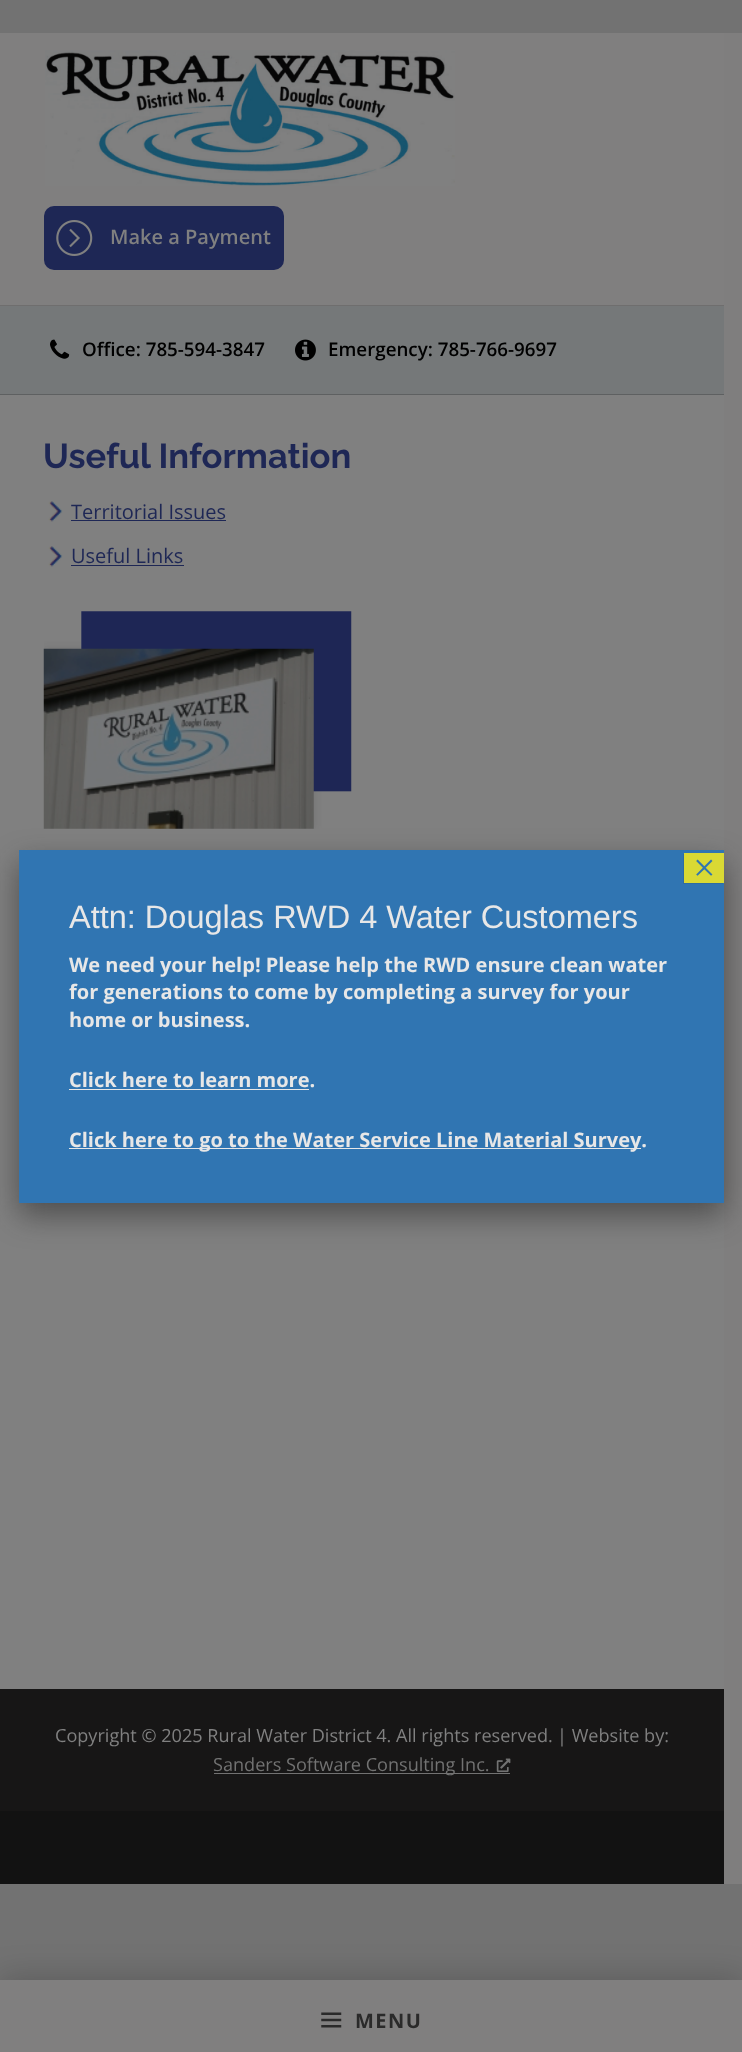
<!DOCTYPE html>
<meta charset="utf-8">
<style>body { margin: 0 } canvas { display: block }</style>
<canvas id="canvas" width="742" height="2052"></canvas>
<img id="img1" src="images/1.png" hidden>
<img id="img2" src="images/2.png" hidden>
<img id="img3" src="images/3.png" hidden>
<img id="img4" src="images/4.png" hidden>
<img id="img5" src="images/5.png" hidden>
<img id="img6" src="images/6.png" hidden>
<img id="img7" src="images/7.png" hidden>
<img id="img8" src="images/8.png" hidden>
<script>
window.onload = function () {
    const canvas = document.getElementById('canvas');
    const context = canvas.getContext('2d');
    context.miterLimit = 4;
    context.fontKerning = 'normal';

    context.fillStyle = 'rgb(114, 114, 114)';
    context.fillRect(0, 0, 742, 2052);
    context.fillStyle = 'rgb(127, 126, 126)';
    context.fillRect(724, 33, 18, 1851);
    context.fillStyle = 'rgb(128, 127, 127)';
    context.fillRect(0, 33, 724, 272);
    context.fillStyle = 'rgb(111, 110, 110)';
    context.fillRect(0, 305, 724, 1);
    context.drawImage(document.getElementById('img1'), 45, 50, 410, 136);
    context.fillStyle = 'rgb(30, 39, 85)';
    context.beginPath();
    context.roundRect(44, 206, 240, 64, 10);
    context.fill();
    context.drawImage(document.getElementById('img2'), 56, 220, 37, 36);
    context.fillStyle = 'rgba(0, 0, 0, 0.2)';
    context.filter = 'blur(16px)';
    context.beginPath();
    context.rect(0, 1978, 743, 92);
    context.fill();
    context.filter = 'none';
    context.fillStyle = 'rgb(128, 127, 127)';
    context.fillRect(0, 1980, 742, 72);
    context.drawImage(document.getElementById('img3'), 321, 2012, 21, 16);
    context.fillStyle = 'rgb(117, 120, 121)';
    context.fillRect(0, 306, 724, 88);
    context.fillStyle = 'rgb(94, 96, 97)';
    context.fillRect(0, 394, 724, 1);
    context.drawImage(document.getElementById('img4'), 50, 339, 20, 20);
    context.drawImage(document.getElementById('img5'), 295, 339, 21, 22);
    context.fillStyle = 'rgb(128, 128, 128)';
    context.fillRect(0, 395, 724, 1294);
    context.drawImage(document.getElementById('img6'), 48, 501, 15, 21);
    context.fillStyle = 'rgb(30, 39, 85)';
    context.fillRect(71, 520, 155, 1);
    context.drawImage(document.getElementById('img6'), 48, 546, 15, 21);
    context.fillRect(71, 565, 113, 1);
    context.drawImage(document.getElementById('img7'), 43, 611, 309, 218);
    context.fillStyle = 'rgb(18, 18, 18)';
    context.fillRect(0, 1811, 724, 73);
    context.fillStyle = 'rgb(23, 22, 22)';
    context.fillRect(0, 1689, 724, 122);
    context.fillStyle = 'rgb(114, 114, 114)';
    context.fillRect(214, 1773, 296, 1);
    context.drawImage(document.getElementById('img8'), 496, 1758, 15, 15);
    context.fillStyle = 'rgba(26, 26, 26, 0.5)';
    context.filter = 'blur(15.5px)';
    context.beginPath();
    context.rect(19, 863, 705, 352);
    context.fill();
    context.filter = 'none';
    context.fillStyle = 'rgb(48, 117, 178)';
    context.fillRect(19, 850, 705, 353);
    context.fillStyle = 'rgba(26, 26, 26, 0.1)';
    context.filter = 'blur(0.5px)';
    context.beginPath();
    context.rect(683, 854, 40, 30);
    context.fill();
    context.filter = 'none';
    context.fillStyle = 'rgb(217, 217, 52)';
    context.fillRect(684, 853, 40, 30);
    context.fillStyle = 'rgb(231, 231, 231)';
    context.fillRect(69, 1089, 240, 1);
    context.fillRect(69, 1148, 572, 1);
    context.font = '600 20px Open Sans';
    context.fillStyle = 'rgb(128, 128, 128)';
    context.fillText('Make a Payment', 110, 244);
    context.letterSpacing = '1.5px';
    context.font = 'bold 20px Open Sans';
    context.fillStyle = 'rgb(42, 42, 42)';
    context.fillText('MENU', 355, 2028);
    context.letterSpacing = '0px';
    context.font = '600 18.75px Open Sans';
    context.fillStyle = 'rgb(0, 0, 0)';
    context.fillText('Office: 785-594-3847', 82, 356);
    context.fillText('Emergency: 785-766-9697', 328, 356);
    context.font = '100 34.5px Raleway';
    context.fillStyle = 'rgb(30, 39, 85)';
    context.fillText('Useful Information', 43, 468);
    context.font = '20px Open Sans';
    context.fillText('Territorial Issues', 71, 519);
    context.fillText('Useful Links', 71, 563);
    context.font = '18.1px Open Sans';
    context.fillStyle = 'rgb(128, 128, 128)';
    context.fillText('Copyright © 2025 Rural Water District 4. All rights reserved.', 55, 1742);
    context.fillText('| Website by:', 557, 1742);
    context.fillStyle = 'rgb(114, 114, 114)';
    context.fillText('Sanders Software Consulting Inc.', 213, 1771);
    context.font = '40px Liberation Serif';
    context.fillStyle = 'rgb(48, 117, 178)';
    context.fillText('×', 693, 881);
    context.font = '32.5px Liberation Sans';
    context.fillStyle = 'rgb(231, 231, 231)';
    context.fillText('Attn: Douglas RWD 4 Water Customers', 69, 928);
    context.font = 'bold 20px Open Sans';
    context.fillText('We need your help! Please help the RWD ensure clean water', 69, 972);
    context.fillText('for generations to come by completing a survey for your', 69, 999);
    context.fillText('home or business.', 69, 1027);
    context.fillText('Click here to learn more.', 69, 1087);
    context.fillText('Click here to go to the Water Service Line Material Survey.', 69, 1147);
};
</script>
